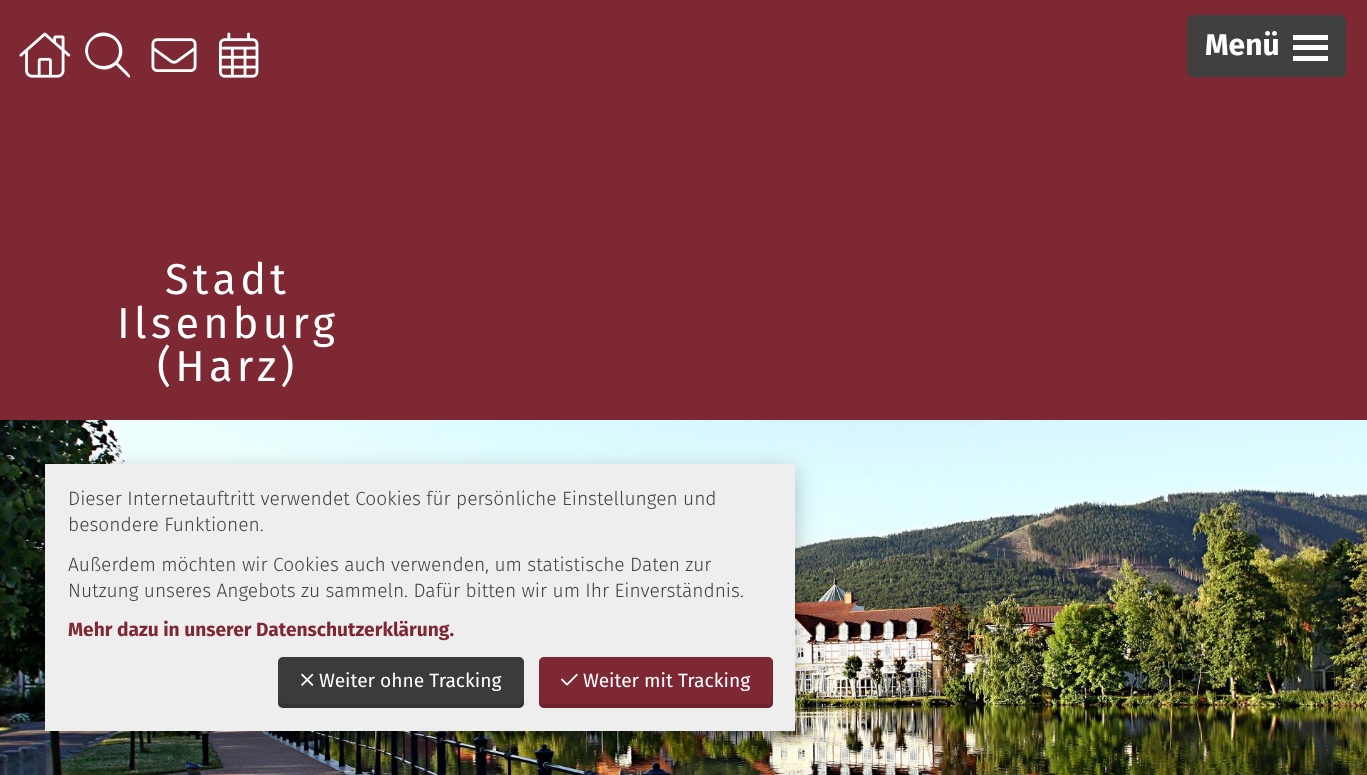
<!DOCTYPE html>
<meta charset="utf-8">
<style>body { margin: 0 } canvas { display: block }</style>
<canvas id="canvas" width="1367" height="775"></canvas>
<img id="img1" src="images/1.png" hidden>
<img id="img2" src="images/2.png" hidden>
<img id="img3" src="images/3.png" hidden>
<img id="img4" src="images/4.png" hidden>
<img id="img5" src="images/5.png" hidden>
<img id="img6" src="images/6.png" hidden>
<script>
window.onload = function () {
    const canvas = document.getElementById('canvas');
    const context = canvas.getContext('2d');
    context.miterLimit = 4;
    context.fontKerning = 'normal';

    context.fillStyle = 'rgb(126, 40, 51)';
    context.fillRect(0, 0, 1367, 775);
    context.fillStyle = 'rgb(64, 64, 64)';
    context.beginPath();
    context.roundRect(1187, 15, 159, 62, 6);
    context.fill();
    context.fillStyle = 'rgb(255, 255, 255)';
    context.fillRect(1293, 35, 35, 5);
    context.fillRect(1293, 45, 35, 5);
    context.fillRect(1293, 56, 35, 5);
    context.drawImage(document.getElementById('img1'), 19, 32, 52, 46);
    context.beginPath();
    context.moveTo(119, 51);
    context.bezierCurveTo(119, 31, 88, 31, 88, 51);
    context.bezierCurveTo(88, 71, 119, 71, 119, 51);
    context.closePath();
    context.moveTo(116, 65);
    context.bezierCurveTo(98, 80, 74, 54, 91, 38);
    context.bezierCurveTo(107, 22, 133, 45, 118, 63);
    context.bezierCurveTo(119, 64, 131, 75, 130, 76);
    context.bezierCurveTo(130, 78, 129, 78, 128, 77);
    context.closePath();
    context.fill();
    context.drawImage(document.getElementById('img2'), 151, 38, 46, 34);
    context.drawImage(document.getElementById('img3'), 219, 32, 40, 46);
    context.drawImage(document.getElementById('img4'), 0, 420, 1367, 355);
    context.fillStyle = 'rgba(0, 0, 0, 0.25)';
    context.filter = 'blur(11px)';
    context.beginPath();
    context.rect(45, 471, 750, 267);
    context.fill();
    context.filter = 'none';
    context.fillStyle = 'rgb(238, 238, 238)';
    context.fillRect(45, 464, 750, 267);
    context.fillStyle = 'rgb(59, 59, 59)';
    context.beginPath();
    context.roundRect(278, 657, 246, 51, 5);
    context.fill();
    context.fillStyle = 'rgba(0, 0, 0, 0.15)';
    context.beginPath();
    context.moveTo(278, 699);
    context.lineTo(278, 703);
    context.bezierCurveTo(278, 706, 280, 708, 283, 708);
    context.lineTo(519, 708);
    context.bezierCurveTo(522, 708, 524, 706, 524, 703);
    context.lineTo(524, 699);
    context.bezierCurveTo(524, 701, 521, 704, 519, 704);
    context.lineTo(282, 704);
    context.bezierCurveTo(280, 704, 278, 701, 278, 699);
    context.closePath();
    context.fill();
    context.drawImage(document.getElementById('img5'), 301, 673, 13, 13);
    context.fillStyle = 'rgb(126, 40, 51)';
    context.beginPath();
    context.roundRect(539, 657, 234, 51, 5);
    context.fill();
    context.fillStyle = 'rgba(0, 0, 0, 0.15)';
    context.beginPath();
    context.moveTo(539, 701);
    context.lineTo(539, 703);
    context.bezierCurveTo(539, 706, 541, 708, 544, 708);
    context.lineTo(768, 708);
    context.bezierCurveTo(771, 708, 773, 706, 773, 703);
    context.lineTo(773, 662);
    context.bezierCurveTo(773, 661, 773, 660, 772, 659);
    context.lineTo(772, 699);
    context.bezierCurveTo(772, 701, 770, 704, 768, 704);
    context.lineTo(543, 704);
    context.bezierCurveTo(542, 704, 540, 703, 539, 701);
    context.closePath();
    context.fill();
    context.drawImage(document.getElementById('img6'), 561, 673, 17, 13);
    context.font = 'bold 30px Fira Sans';
    context.fillStyle = 'rgb(255, 255, 255)';
    context.fillText('Menü', 1205, 55);
    context.letterSpacing = '4.25px';
    context.font = '43.25px Fira Sans';
    context.fillText('Stadt', 165, 294);
    context.fillText('Ilsenburg', 117, 338);
    context.fillText('(Harz)', 157, 381);
    context.letterSpacing = '0px';
    context.font = '300 19.2px Fira Sans';
    context.fillStyle = 'rgb(64, 64, 64)';
    context.fillText('Dieser Internetauftritt verwendet Cookies für persönliche Einstellungen und', 68, 505);
    context.fillText('besondere Funktionen.', 68, 531);
    context.fillText('Außerdem möchten wir Cookies auch verwenden, um statistische Daten zur', 68, 571);
    context.fillText('Nutzung unseres Angebots zu sammeln. Dafür bitten wir um Ihr Einverständnis.', 68, 597);
    context.font = 'bold 19.2px Fira Sans';
    context.fillStyle = 'rgb(126, 40, 51)';
    context.fillText('Mehr dazu in unserer Datenschutzerklärung.', 68, 636);
    context.font = '19.2px Fira Sans';
    context.fillStyle = 'rgb(255, 255, 255)';
    context.fillText('Weiter ohne Tracking', 319, 687);
    context.fillText('Weiter mit Tracking', 583, 687);
};
</script>
